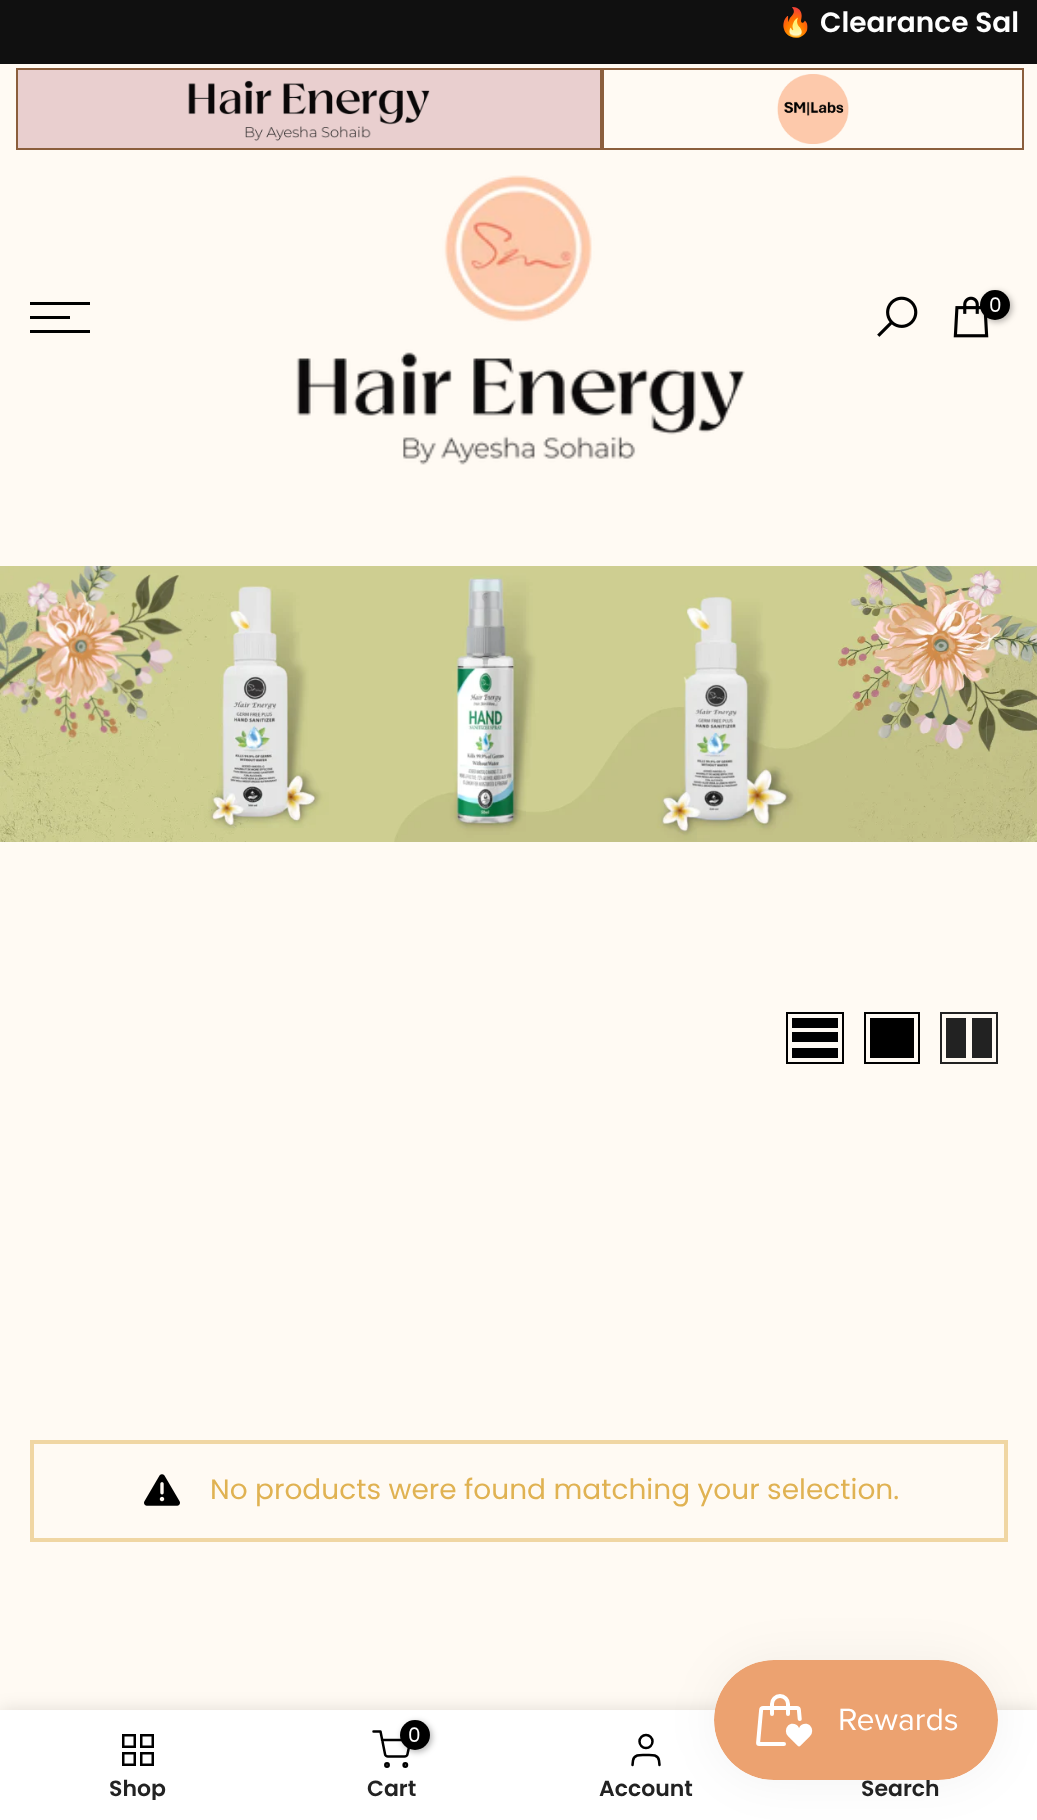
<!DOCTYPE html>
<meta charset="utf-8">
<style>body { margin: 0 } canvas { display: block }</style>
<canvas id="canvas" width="1037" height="1820"></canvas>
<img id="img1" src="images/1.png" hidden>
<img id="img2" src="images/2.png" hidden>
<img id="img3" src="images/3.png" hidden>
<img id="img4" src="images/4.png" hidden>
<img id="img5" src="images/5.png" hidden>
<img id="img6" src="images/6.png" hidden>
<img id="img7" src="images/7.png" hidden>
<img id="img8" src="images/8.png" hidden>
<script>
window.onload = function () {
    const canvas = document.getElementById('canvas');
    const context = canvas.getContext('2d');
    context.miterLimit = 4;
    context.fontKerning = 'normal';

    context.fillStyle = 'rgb(255, 250, 243)';
    context.fillRect(0, 0, 1037, 1820);
    context.fillStyle = 'rgb(16, 16, 16)';
    context.fillRect(0, 0, 1037, 64);
    context.fillStyle = 'rgb(233, 207, 207)';
    context.beginPath();
    context.rect(17, 69, 584, 80);
    context.fill();
    context.strokeStyle = 'rgb(139, 94, 60)';
    context.lineWidth = 2;
    context.stroke();
    context.drawImage(document.getElementById('img1'), 188, 80, 242, 61);
    context.strokeRect(603, 69, 420, 80);
    context.drawImage(document.getElementById('img2'), 777, 74, 72, 70);
    context.fillStyle = 'rgb(0, 0, 0)';
    context.fillRect(30, 302, 60, 3);
    context.fillRect(30, 316, 40, 3);
    context.fillRect(30, 330, 60, 3);
    context.drawImage(document.getElementById('img3'), 296, 175, 449, 290);
    context.drawImage(document.getElementById('img4'), 877, 296, 41, 41);
    context.drawImage(document.getElementById('img5'), 953, 296, 36, 42);
    context.fillStyle = 'rgba(0, 0, 0, 0.3)';
    context.filter = 'blur(3px)';
    context.beginPath();
    context.roundRect(982, 292, 30, 30, 15);
    context.fill();
    context.filter = 'none';
    context.fillStyle = 'rgb(0, 0, 0)';
    context.beginPath();
    context.arc(995, 305, 15, 0, 2 * Math.PI);
    context.fill();
    context.drawImage(document.getElementById('img6'), 0, 566, 1037, 276);
    context.strokeStyle = 'rgb(0, 0, 0)';
    context.strokeRect(787, 1013, 56, 50);
    context.fillRect(792, 1048, 46, 10);
    context.fillRect(792, 1032, 46, 10);
    context.fillRect(792, 1018, 46, 10);
    context.strokeRect(865, 1013, 54, 50);
    context.fillRect(870, 1018, 44, 40);
    context.strokeStyle = 'rgb(34, 34, 34)';
    context.strokeRect(941, 1013, 56, 50);
    context.fillStyle = 'rgb(34, 34, 34)';
    context.fillRect(972, 1018, 20, 40);
    context.fillRect(946, 1018, 20, 40);
    context.strokeStyle = 'rgb(240, 214, 163)';
    context.lineWidth = 4;
    context.strokeRect(32, 1442, 974, 98);
    context.drawImage(document.getElementById('img7'), 144, 1474, 36, 32);
    context.fillStyle = 'rgba(0, 0, 0, 0.12)';
    context.filter = 'blur(9px)';
    context.beginPath();
    context.rect(0, 1710, 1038, 110);
    context.fill();
    context.filter = 'none';
    context.fillStyle = 'rgb(255, 255, 255)';
    context.fillRect(0, 1710, 1037, 110);
    context.beginPath();
    context.arc(646, 1741.5, 6.5, 0, 2 * Math.PI);
    context.strokeStyle = 'rgb(0, 0, 0)';
    context.lineWidth = 2.5;
    context.stroke();
    context.beginPath();
    context.moveTo(659.5, 1765);
    context.lineTo(659, 1760.5);
    context.bezierCurveTo(658, 1754, 651, 1755, 646, 1755);
    context.bezierCurveTo(641, 1755, 634, 1754, 633, 1760.5);
    context.lineTo(632.5, 1765);
    context.lineCap = 'round';
    context.lineJoin = 'round';
    context.stroke();
    context.fillStyle = 'rgba(0, 0, 0, 0.05)';
    context.filter = 'blur(25px)';
    context.beginPath();
    context.roundRect(714, 1660, 284, 120, 60);
    context.fill();
    context.filter = 'none';
    context.lineJoin = 'miter';
    context.strokeRect(123.25, 1735.25, 11.5, 11.5);
    context.strokeRect(141.25, 1735.25, 11.5, 11.5);
    context.strokeRect(123.25, 1753.25, 11.5, 11.5);
    context.strokeRect(141.25, 1753.25, 11.5, 11.5);
    context.beginPath();
    context.moveTo(373.5, 1731.5);
    context.lineTo(380.5, 1731.5);
    context.lineTo(385, 1754);
    context.bezierCurveTo(385, 1755.5, 386.5, 1756.5, 388, 1756.5);
    context.lineTo(404.5, 1756.5);
    context.bezierCurveTo(406, 1756.5, 407.5, 1755.5, 407.5, 1754);
    context.lineTo(410.5, 1740);
    context.lineTo(382, 1740);
    context.lineJoin = 'round';
    context.stroke();
    context.fillStyle = 'rgba(0, 0, 0, 0.3)';
    context.filter = 'blur(3px)';
    context.beginPath();
    context.roundRect(402, 1722, 30, 30, 15);
    context.fill();
    context.filter = 'none';
    context.fillStyle = 'rgb(0, 0, 0)';
    context.beginPath();
    context.arc(415, 1735, 15, 0, 2 * Math.PI);
    context.fill();
    context.beginPath();
    context.arc(387, 1765, 1.7, 0, 2 * Math.PI);
    context.stroke();
    context.beginPath();
    context.arc(405.3, 1765, 1.7, 0, 2 * Math.PI);
    context.stroke();
    context.font = 'bold 28px Noto Color Emoji';
    context.fillStyle = 'rgb(255, 255, 255)';
    context.fillText('🔥', 778, 32);
    context.font = '600 28px Poppins';
    context.fillText('Clearance Sal', 820, 32);
    context.font = '20px Poppins';
    context.fillText('0', 989, 312);
    context.font = '28px Poppins';
    context.fillStyle = 'rgb(224, 178, 82)';
    context.fillText('No products were found matching your selection.', 210, 1499);
    context.save();
    context.beginPath();
    context.rect(30, 1778, 214, 22);
    context.clip();
    context.font = '600 22px Poppins';
    context.fillStyle = 'rgb(34, 34, 34)';
    context.fillText('Shop', 109, 1796);
    context.restore();
    context.font = '20px Poppins';
    context.fillStyle = 'rgb(255, 255, 255)';
    context.fillText('0', 408, 1742);
    context.font = '600 22px Poppins';
    context.fillStyle = 'rgb(34, 34, 34)';
    context.fillText('Cart', 367, 1796);
    context.fillText('Account', 599, 1796);
    context.fillText('Search', 861, 1796);
    context.drawImage(document.getElementById('img8'), 714, 1660, 284, 120);
};
</script>
